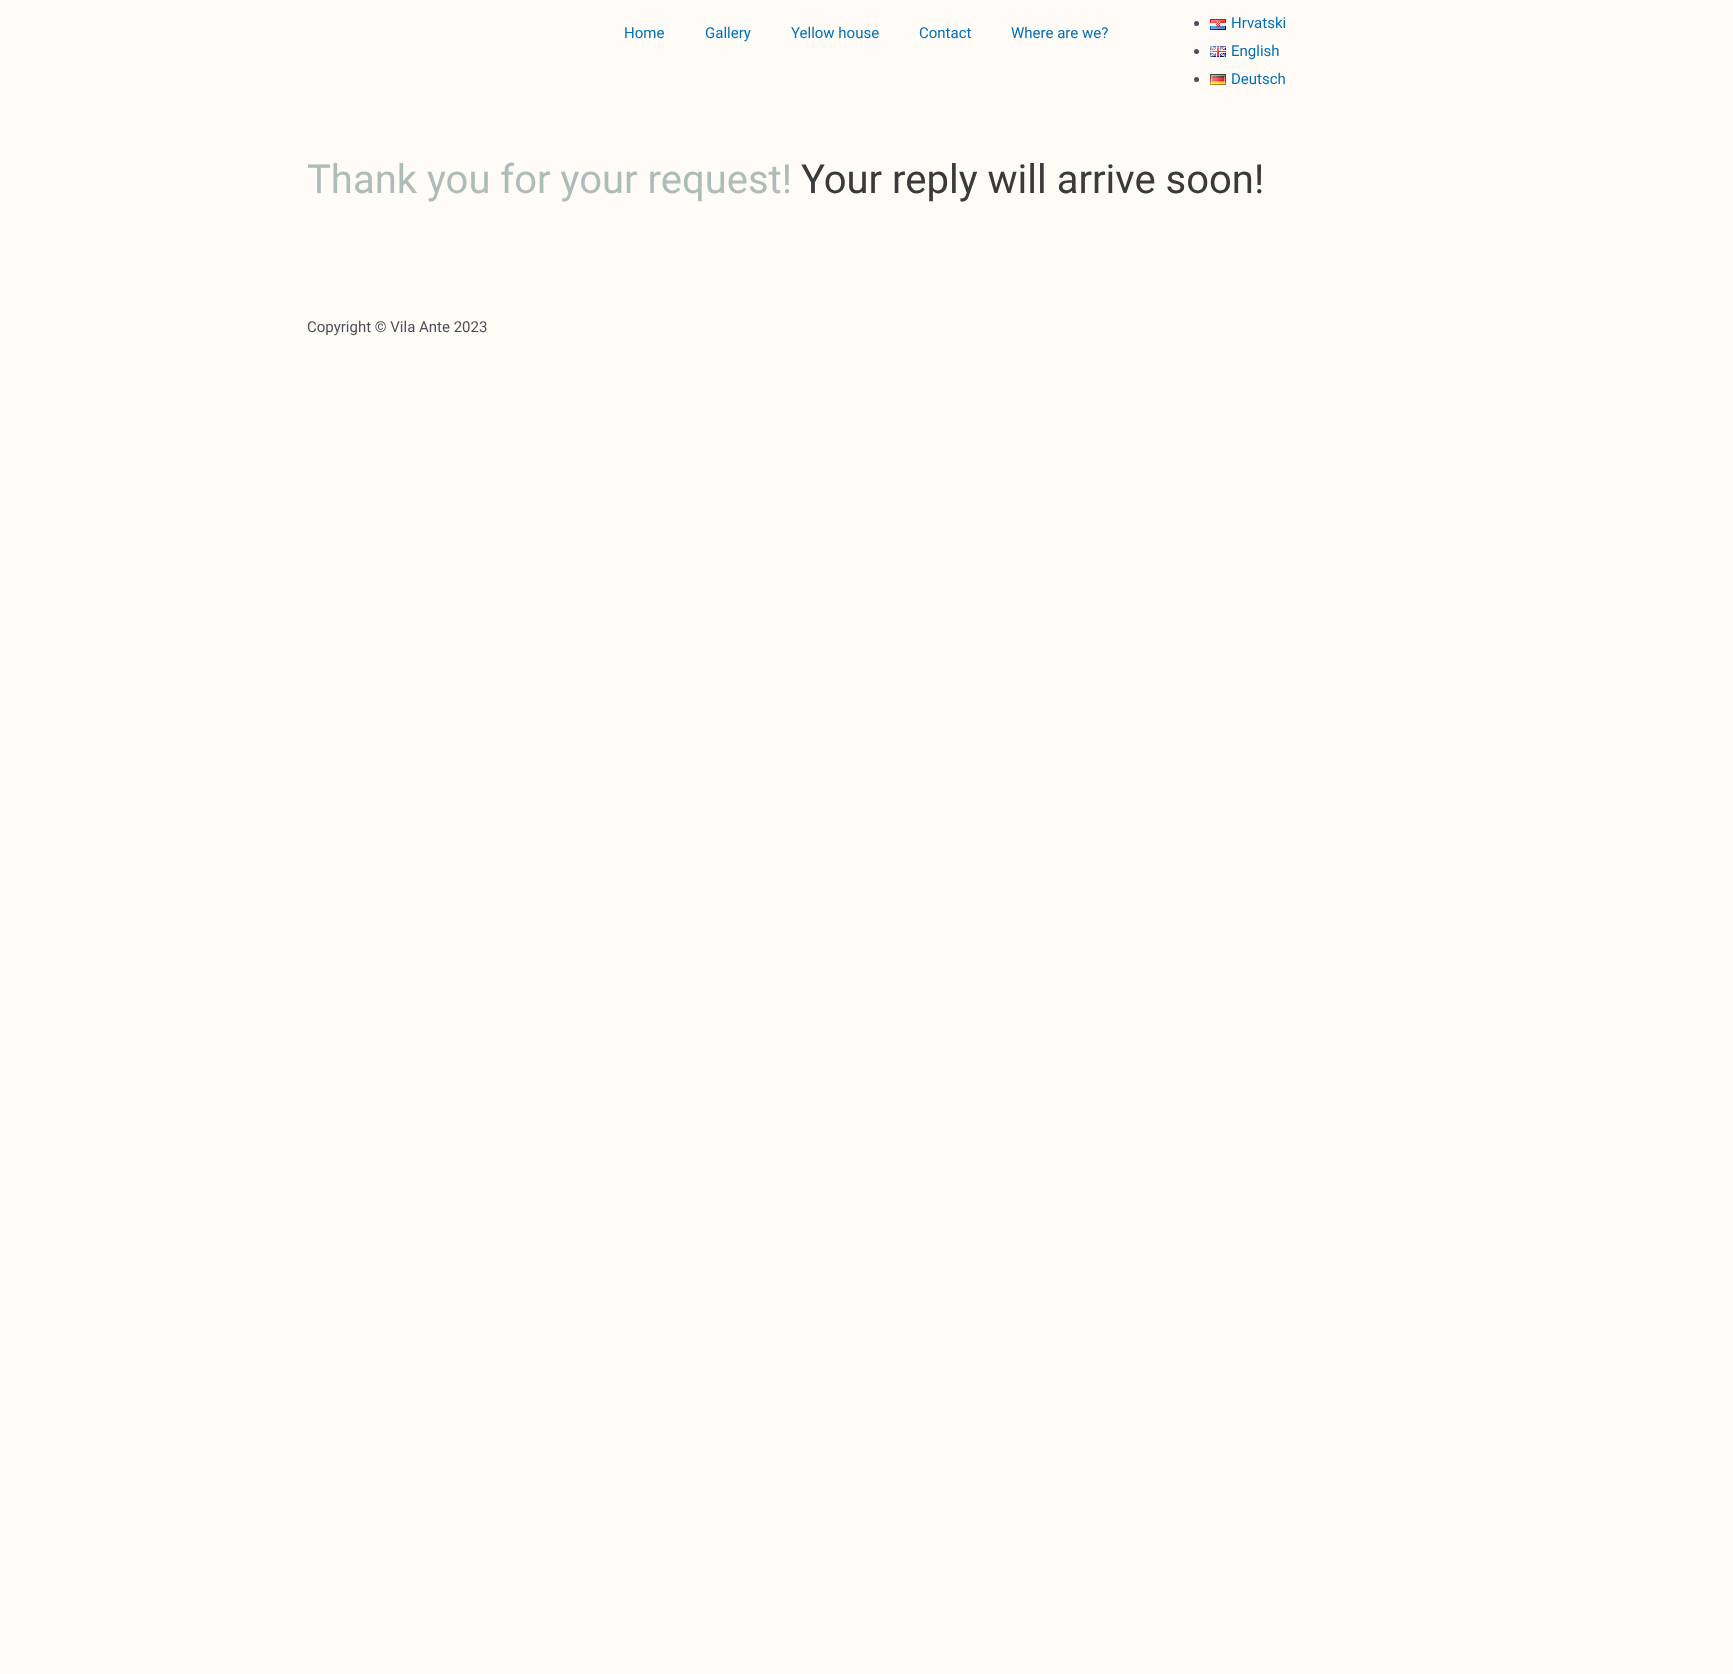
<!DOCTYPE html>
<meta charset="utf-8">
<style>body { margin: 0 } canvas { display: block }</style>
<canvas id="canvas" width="1733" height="1674"></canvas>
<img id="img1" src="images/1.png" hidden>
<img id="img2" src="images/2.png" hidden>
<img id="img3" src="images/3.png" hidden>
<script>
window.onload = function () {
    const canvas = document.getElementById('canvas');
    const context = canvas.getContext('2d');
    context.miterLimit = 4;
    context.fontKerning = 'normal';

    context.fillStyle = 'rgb(255, 252, 247)';
    context.fillRect(0, 0, 1733, 1674);
    context.fillStyle = 'rgb(75, 79, 88)';
    context.beginPath();
    context.arc(1196.5, 23.5, 2.5, 0, 2 * Math.PI);
    context.fill();
    context.drawImage(document.getElementById('img1'), 1210, 19, 16, 11);
    context.beginPath();
    context.arc(1196.5, 51.5, 2.5, 0, 2 * Math.PI);
    context.fill();
    context.drawImage(document.getElementById('img2'), 1210, 46, 16, 11);
    context.beginPath();
    context.arc(1196.5, 79.5, 2.5, 0, 2 * Math.PI);
    context.fill();
    context.drawImage(document.getElementById('img3'), 1210, 74, 16, 11);
    context.font = '15px Roboto';
    context.fillStyle = 'rgb(1, 112, 185)';
    context.fillText('Home', 624, 38);
    context.fillText('Gallery', 705, 38);
    context.fillText('Yellow house', 791, 38);
    context.fillText('Contact', 919, 38);
    context.fillText('Where are we?', 1011, 38);
    context.fillText('Hrvatski', 1231, 28);
    context.fillText('English', 1231, 56);
    context.fillText('Deutsch', 1231, 84);
    context.font = '40px Roboto';
    context.fillStyle = 'rgb(174, 188, 185)';
    context.fillText('Thank you for your request!', 307, 193);
    context.fillStyle = 'rgb(58, 58, 58)';
    context.fillText('Your reply will arrive soon!', 801, 193);
    context.font = '15px Roboto';
    context.fillStyle = 'rgb(75, 79, 88)';
    context.fillText('Copyright © Vila Ante 2023', 307, 332);
};
</script>
